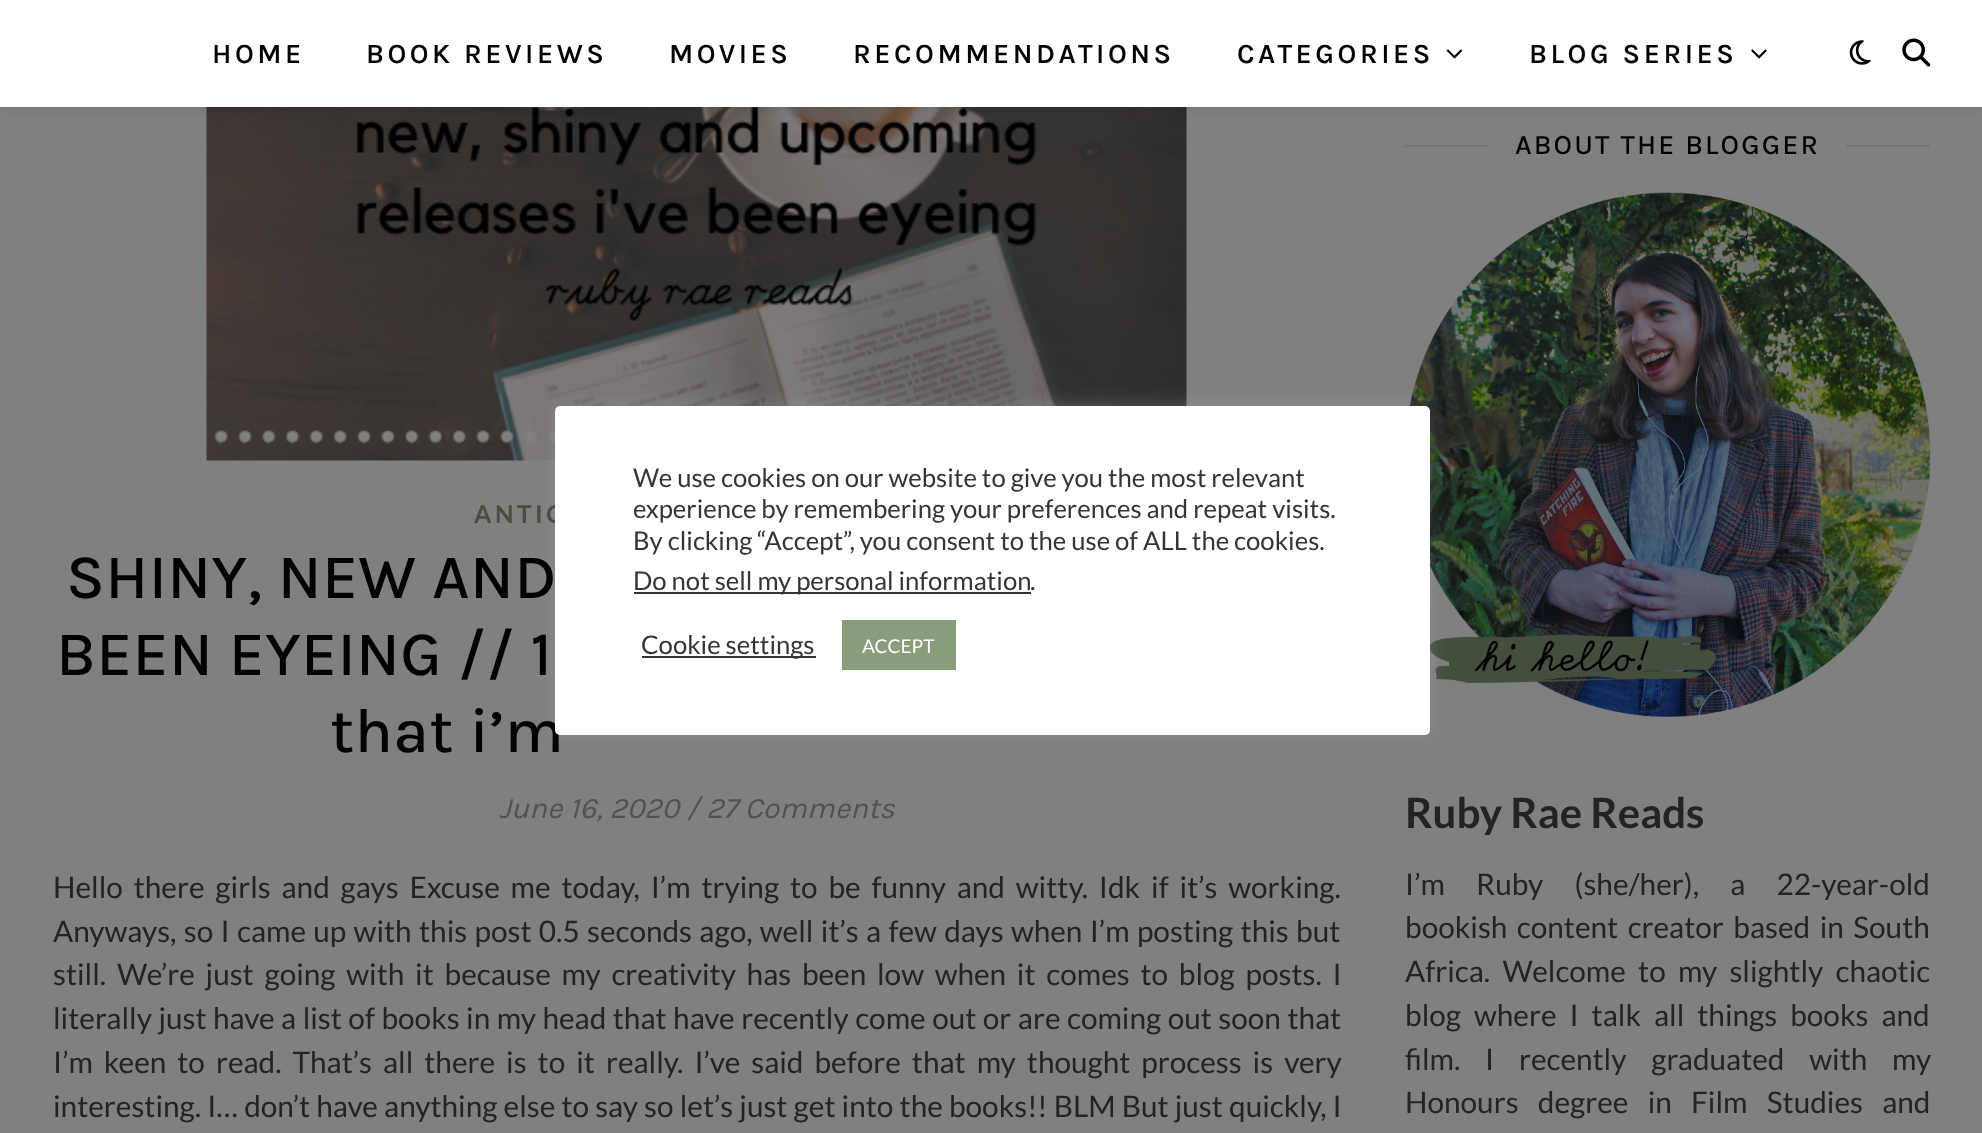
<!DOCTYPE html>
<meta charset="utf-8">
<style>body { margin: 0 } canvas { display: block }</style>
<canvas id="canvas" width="1982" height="1133"></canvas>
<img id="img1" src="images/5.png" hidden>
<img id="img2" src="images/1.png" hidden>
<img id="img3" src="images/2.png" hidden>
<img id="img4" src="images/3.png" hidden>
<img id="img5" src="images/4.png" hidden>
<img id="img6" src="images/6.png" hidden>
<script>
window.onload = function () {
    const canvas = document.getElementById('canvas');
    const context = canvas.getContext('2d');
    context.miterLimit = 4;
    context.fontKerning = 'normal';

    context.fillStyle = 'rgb(128, 128, 128)';
    context.fillRect(0, 0, 1982, 1133);
    context.drawImage(document.getElementById('img1'), 206, 107, 981, 354);
    context.fillStyle = 'rgba(0, 0, 0, 0.1)';
    context.filter = 'blur(4.5px)';
    context.beginPath();
    context.rect(0, 2, 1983, 107);
    context.fill();
    context.filter = 'none';
    context.fillStyle = 'rgb(255, 255, 255)';
    context.fillRect(0, 0, 1982, 107);
    context.drawImage(document.getElementById('img2'), 1446, 49, 17, 10);
    context.drawImage(document.getElementById('img3'), 1751, 49, 16, 10);
    context.drawImage(document.getElementById('img4'), 1849, 40, 22, 25);
    context.drawImage(document.getElementById('img5'), 1902, 38, 29, 29);
    context.fillStyle = 'rgb(116, 116, 116)';
    context.fillRect(1405, 145, 84, 2);
    context.fillRect(1846, 145, 84, 2);
    context.drawImage(document.getElementById('img6'), 1405, 192, 526, 525);
    context.fillStyle = 'rgba(172, 171, 171, 0.3)';
    context.filter = 'blur(9px)';
    context.beginPath();
    context.roundRect(555, 404, 875, 329, 5);
    context.fill();
    context.filter = 'none';
    context.letterSpacing = '3.5px';
    context.font = '600 28px Karla';
    context.fillStyle = 'rgb(2, 2, 2)';
    context.fillText('HOME', 212, 63);
    context.fillText('BOOK REVIEWS', 366, 63);
    context.fillText('MOVIES', 669, 63);
    context.fillText('RECOMMENDATIONS', 853, 63);
    context.fillText('CATEGORIES', 1237, 63);
    context.fillText('BLOG SERIES', 1529, 63);
    context.font = 'bold 24.5px Lato';
    context.fillStyle = 'rgb(69, 79, 62)';
    context.fillText('ANTIC', 474, 523);
    context.letterSpacing = '0.3px';
    context.font = '500 63px Karla';
    context.fillStyle = 'rgb(2, 2, 2)';
    context.fillText('SHINY, NEW AND', 66, 598);
    context.fillText('BEEN EYEING // 1', 56, 675);
    context.fillText('that i’m', 330, 752);
    context.letterSpacing = '0px';
    context.font = 'italic 29.75px Karla';
    context.fillStyle = 'rgb(81, 81, 81)';
    context.fillText('June 16, 2020 / 27 Comments', 499, 818);
    context.wordSpacing = '5.1px';
    context.font = '29.75px Lato';
    context.fillStyle = 'rgb(35, 35, 35)';
    context.fillText('Hello there girls and gays Excuse me today, I’m trying to be funny and witty. Idk if it’s working.', 53, 898);
    context.wordSpacing = '1.6px';
    context.fillText('Anyways, so I came up with this post 0.5 seconds ago, well it’s a few days when I’m posting this but', 53, 942);
    context.wordSpacing = '5px';
    context.fillText('still. We’re just going with it because my creativity has been low when it comes to blog posts. I', 53, 985);
    context.wordSpacing = '0.75px';
    context.fillText('literally just have a list of books in my head that have recently come out or are coming out soon that', 53, 1029);
    context.wordSpacing = '5.25px';
    context.fillText('I’m keen to read. That’s all there is to it really. I’ve said before that my thought process is very', 53, 1073);
    context.wordSpacing = '0.4px';
    context.fillText('interesting. I… don’t have anything else to say so let’s just get into the books!! BLM But just quickly, I', 53, 1117);
    context.letterSpacing = '2.1px';
    context.wordSpacing = '0px';
    context.font = '500 28px Karla';
    context.fillStyle = 'rgb(2, 2, 2)';
    context.fillText('ABOUT THE BLOGGER', 1515, 154);
    context.letterSpacing = '0px';
    context.font = 'bold 42px Lato';
    context.fillStyle = 'rgb(35, 35, 35)';
    context.fillText('Ruby Rae Reads', 1405, 828);
    context.wordSpacing = '25.5px';
    context.font = '29.75px Lato';
    context.fillText('I’m Ruby (she/her), a 22-year-old', 1405, 895);
    context.wordSpacing = '3.75px';
    context.fillText('bookish content creator based in South', 1405, 938);
    context.wordSpacing = '6.5px';
    context.fillText('Africa. Welcome to my slightly chaotic', 1405, 982);
    context.wordSpacing = '7.25px';
    context.fillText('blog where I talk all things books and', 1405, 1026);
    context.wordSpacing = '19px';
    context.fillText('film. I recently graduated with my', 1405, 1070);
    context.wordSpacing = '13.5px';
    context.fillText('Honours degree in Film Studies and', 1405, 1113);
    context.fillStyle = 'rgb(255, 255, 255)';
    context.beginPath();
    context.roundRect(555, 406, 875, 329, 5);
    context.fill();
    context.wordSpacing = '0px';
    context.font = '25.7px Lato';
    context.fillStyle = 'rgb(53, 53, 53)';
    context.fillText('We use cookies on our website to give you the most relevant', 633, 487);
    context.fillText('experience by remembering your preferences and repeat visits.', 633, 518);
    context.fillText('By clicking “Accept”, you consent to the use of ALL the cookies.', 633, 550);
    context.fillStyle = 'rgb(51, 51, 51)';
    context.fillRect(634, 592, 397, 2);
    context.fillStyle = 'rgb(53, 53, 53)';
    context.fillText('Do not sell my personal information', 633, 590);
    context.fillText('.', 1030, 590);
    context.fillStyle = 'rgb(51, 51, 51)';
    context.fillRect(642, 656, 174, 2);
    context.fillStyle = 'rgb(53, 53, 53)';
    context.fillText('Cookie settings', 641, 654);
    context.fillStyle = 'rgb(137, 157, 123)';
    context.fillRect(842, 620, 114, 50);
    context.font = '19px Lato';
    context.fillStyle = 'rgb(255, 255, 255)';
    context.fillText('ACCEPT', 862, 653);
};
</script>
